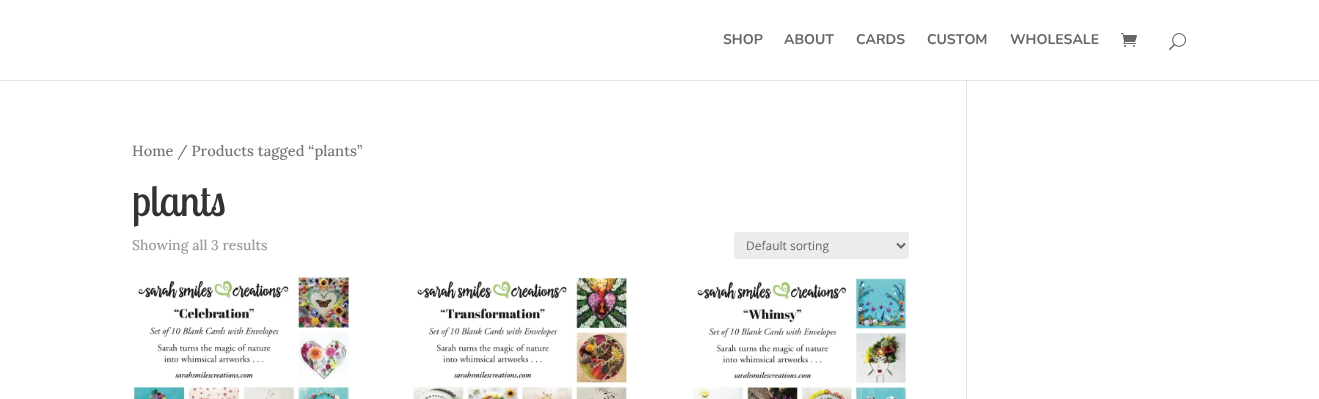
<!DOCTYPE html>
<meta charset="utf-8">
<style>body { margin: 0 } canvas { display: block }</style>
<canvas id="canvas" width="1319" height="399"></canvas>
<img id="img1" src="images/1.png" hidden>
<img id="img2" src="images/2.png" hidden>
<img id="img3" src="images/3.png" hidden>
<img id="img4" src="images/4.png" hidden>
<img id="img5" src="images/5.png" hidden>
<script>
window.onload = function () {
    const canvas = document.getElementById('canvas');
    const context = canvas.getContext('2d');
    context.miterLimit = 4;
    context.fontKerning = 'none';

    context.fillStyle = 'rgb(255, 255, 255)';
    context.fillRect(0, 0, 1319, 399);
    context.fillStyle = 'rgb(230, 230, 230)';
    context.fillRect(0, 80, 1319, 1);
    context.fillStyle = 'rgb(226, 226, 226)';
    context.fillRect(966, 79, 1, 320);
    context.fillStyle = 'rgb(255, 255, 255)';
    context.fillRect(966, 79, 1, 1);
    context.drawImage(document.getElementById('img1'), 1121, 33, 16, 14);
    context.drawImage(document.getElementById('img2'), 1169, 33, 17, 18);
    context.fillStyle = 'rgb(236, 236, 236)';
    context.beginPath();
    context.roundRect(734, 232, 175, 27, 3);
    context.fill();
    context.beginPath();
    context.moveTo(897, 243.5);
    context.lineTo(901, 247.5);
    context.lineTo(905, 243.5);
    context.strokeStyle = 'rgb(102, 102, 102)';
    context.lineWidth = 2;
    context.stroke();
    context.drawImage(document.getElementById('img3'), 132, 276, 218, 123);
    context.drawImage(document.getElementById('img4'), 413, 277, 214, 122);
    context.drawImage(document.getElementById('img5'), 693, 278, 214, 121);
    context.fillStyle = 'rgb(203, 203, 203)';
    context.fillRect(966, 80, 1, 1);
    context.font = '200 14px Nunito';
    context.fillStyle = 'rgb(102, 102, 102)';
    context.fillText('SHOP', 723, 44);
    context.fillText('ABOUT', 784, 44);
    context.fillText('CARDS', 856, 44);
    context.fillText('CUSTOM', 927, 44);
    context.fillText('WHOLESALE', 1010, 44);
    context.font = '500 14.75px Lora';
    context.fillStyle = 'rgb(118, 118, 118)';
    context.fillText('Home / Products tagged “plants”', 132, 156);
    context.font = '43px Lobster Two';
    context.fillStyle = 'rgb(51, 51, 51)';
    context.fillText('plants', 132, 216);
    context.font = '500 14px Lora';
    context.fillStyle = 'rgb(153, 153, 153)';
    context.fillText('Showing all 3 results', 132, 250);
    context.font = '12px Open Sans';
    context.fillStyle = 'rgb(102, 102, 102)';
    context.fillText('Default sorting', 746, 250);
};
</script>
